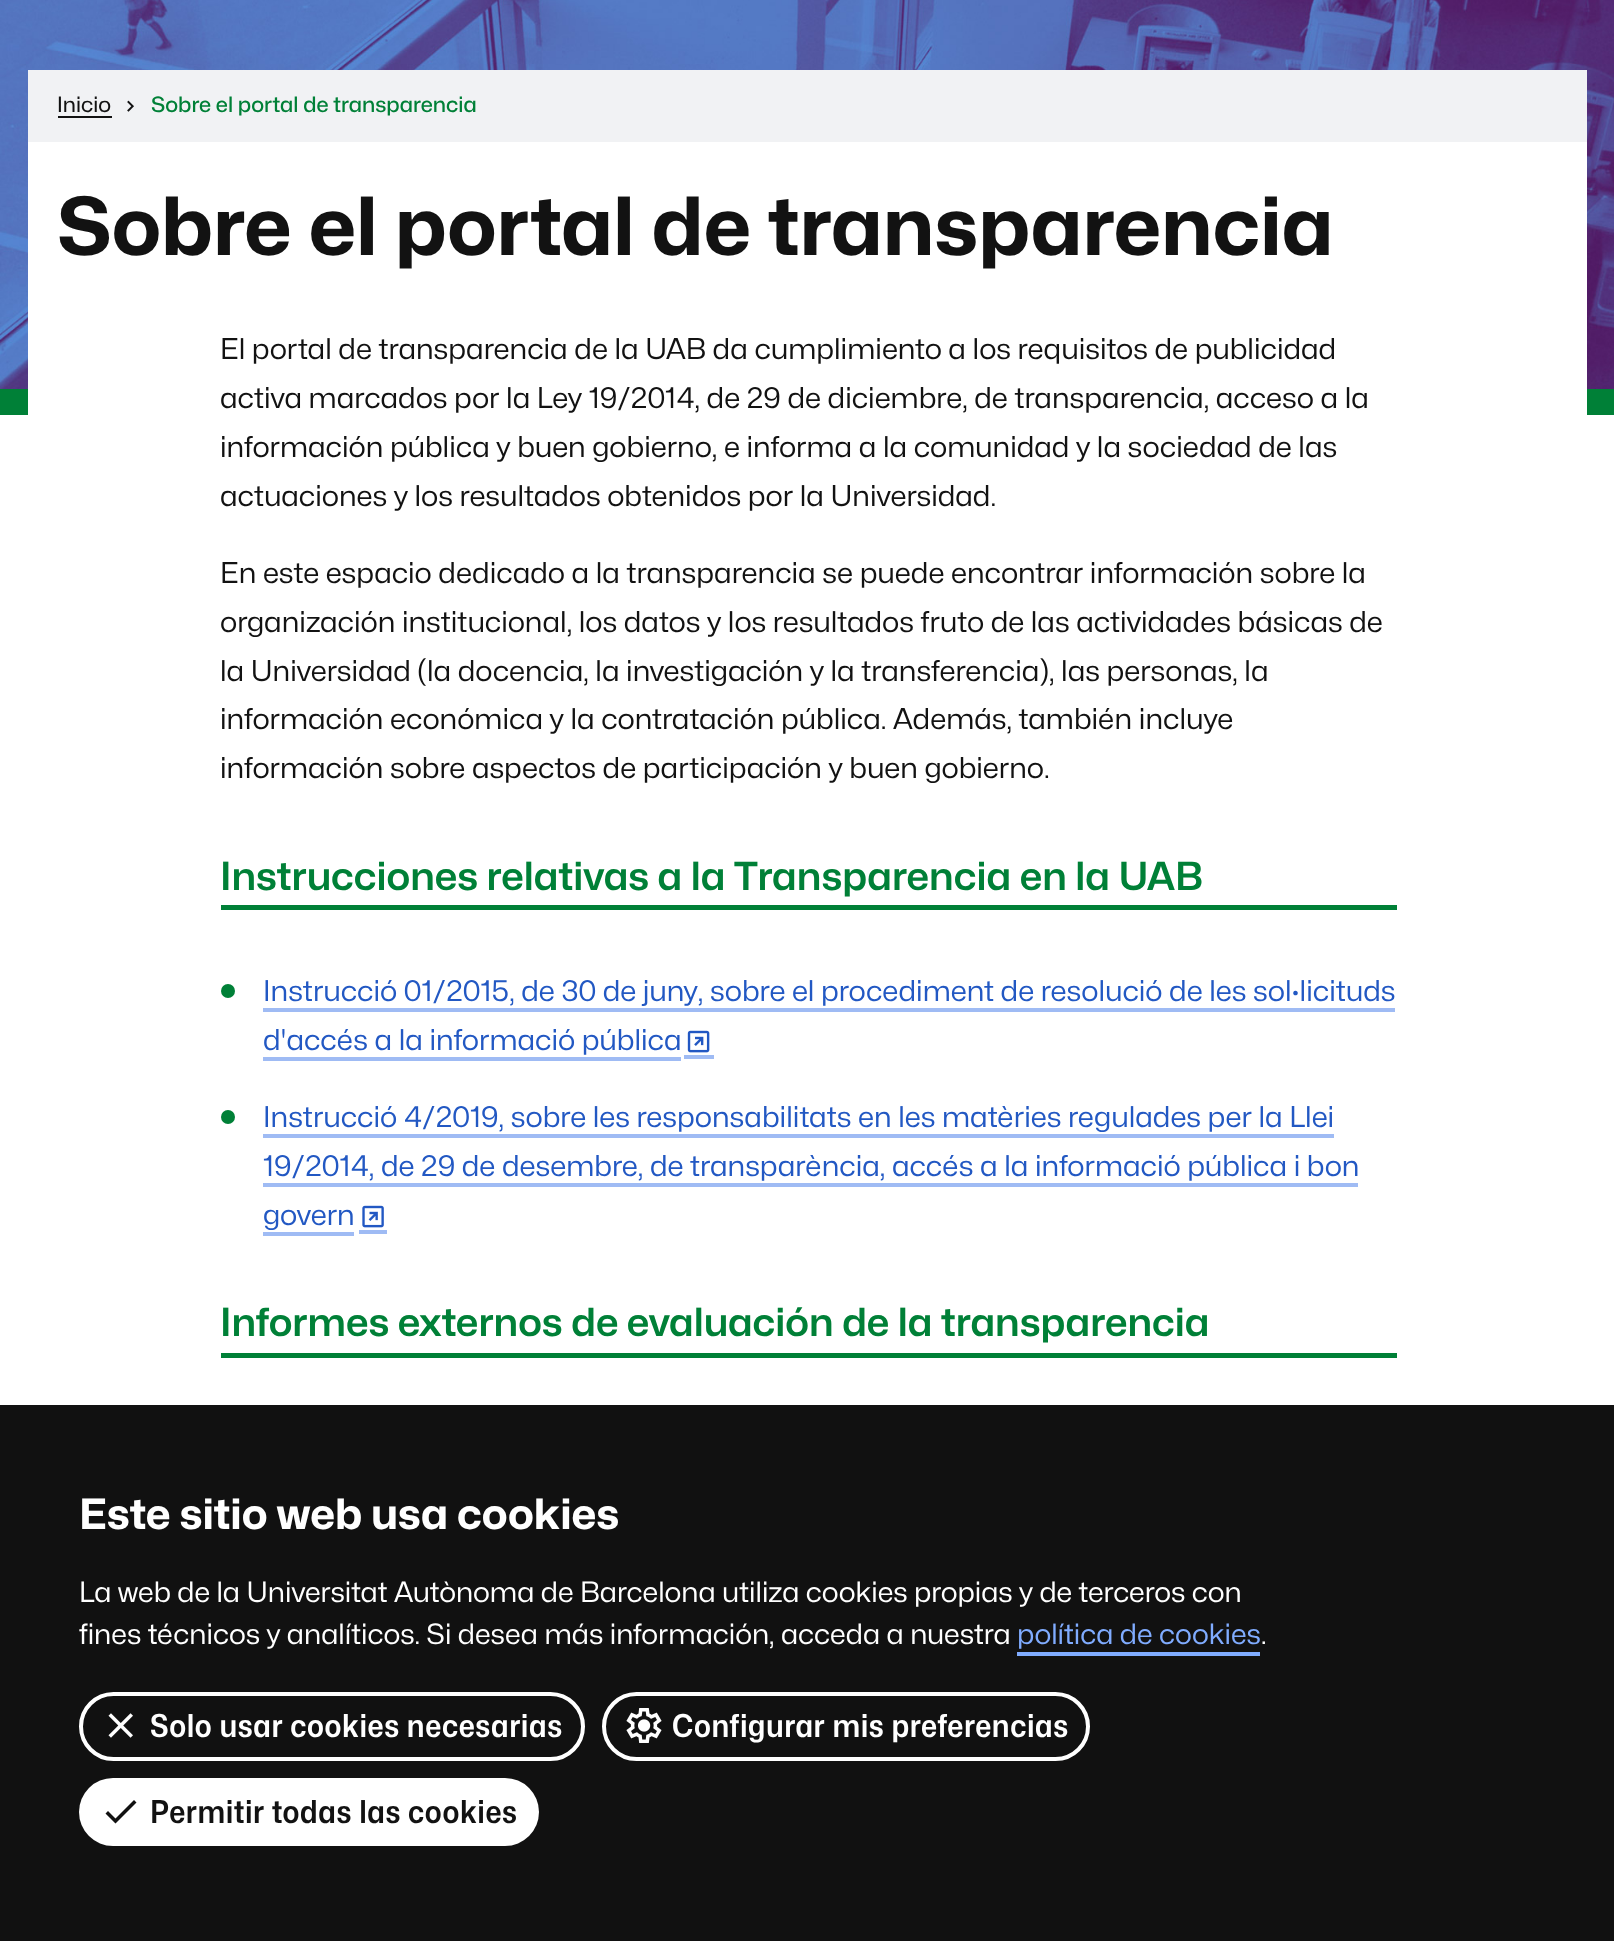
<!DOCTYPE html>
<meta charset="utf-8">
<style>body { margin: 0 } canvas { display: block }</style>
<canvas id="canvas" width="1614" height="1941"></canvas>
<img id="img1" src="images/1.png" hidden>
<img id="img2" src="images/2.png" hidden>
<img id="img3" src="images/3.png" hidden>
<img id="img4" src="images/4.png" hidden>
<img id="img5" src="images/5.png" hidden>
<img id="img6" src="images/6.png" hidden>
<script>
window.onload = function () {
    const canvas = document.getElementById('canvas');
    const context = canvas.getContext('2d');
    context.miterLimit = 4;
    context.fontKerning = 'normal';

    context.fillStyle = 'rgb(255, 255, 255)';
    context.fillRect(0, 0, 1614, 1941);
    context.drawImage(document.getElementById('img1'), 0, 0, 1614, 389);
    context.fillStyle = 'rgb(0, 128, 55)';
    context.fillRect(0, 389, 1614, 26);
    context.fillStyle = 'rgb(255, 255, 255)';
    context.fillRect(28, 142, 1559, 273);
    context.fillStyle = 'rgb(241, 242, 244)';
    context.fillRect(28, 70, 1559, 72);
    context.fillStyle = 'rgb(18, 18, 18)';
    context.fillRect(58, 116, 54, 2);
    context.drawImage(document.getElementById('img2'), 127, 100, 7, 12);
    context.fillStyle = 'rgb(0, 128, 55)';
    context.fillRect(221, 905, 1176, 5);
    context.beginPath();
    context.arc(228, 991, 7, 0, 2 * Math.PI);
    context.fill();
    context.fillStyle = 'rgb(159, 187, 244)';
    context.fillRect(263, 1008, 1132, 4);
    context.fillRect(263, 1057, 418, 4);
    context.fillRect(684, 1055, 30, 4);
    context.drawImage(document.getElementById('img3'), 687, 1030, 23, 23);
    context.fillStyle = 'rgb(0, 128, 55)';
    context.beginPath();
    context.arc(228, 1117, 7, 0, 2 * Math.PI);
    context.fill();
    context.fillStyle = 'rgb(159, 187, 244)';
    context.fillRect(263, 1134, 1071, 4);
    context.fillRect(263, 1183, 1095, 4);
    context.fillRect(263, 1232, 91, 4);
    context.fillRect(359, 1230, 28, 4);
    context.drawImage(document.getElementById('img4'), 362, 1205, 22, 23);
    context.fillStyle = 'rgb(0, 128, 55)';
    context.fillRect(221, 1353, 1176, 5);
    context.fillStyle = 'rgb(17, 17, 17)';
    context.fillRect(0, 1405, 1614, 536);
    context.fillStyle = 'rgb(128, 172, 255)';
    context.fillRect(1017, 1652, 243, 4);
    context.beginPath();
    context.roundRect(81, 1694, 502, 65, 32.5);
    context.strokeStyle = 'rgb(255, 255, 255)';
    context.lineWidth = 4;
    context.stroke();
    context.drawImage(document.getElementById('img5'), 108, 1713, 25, 25);
    context.beginPath();
    context.roundRect(604, 1694, 484, 65, 32.5);
    context.stroke();
    context.drawImage(document.getElementById('img6'), 626, 1708, 36, 35);
    context.fillStyle = 'rgb(255, 255, 255)';
    context.beginPath();
    context.roundRect(79, 1778, 460, 68, 34);
    context.fill();
    context.fillStyle = 'rgb(17, 17, 17)';
    context.beginPath();
    context.moveTo(115.5, 1818.5);
    context.lineTo(108, 1811);
    context.lineTo(105.5, 1813.5);
    context.lineTo(115.5, 1823.5);
    context.lineTo(136.5, 1802.5);
    context.lineTo(134, 1800);
    context.closePath();
    context.fill();
    context.font = '21.25px Mona Sans';
    context.fillStyle = 'rgb(18, 18, 18)';
    context.fillText('Inicio', 57, 112);
    context.font = '500 21.25px Mona Sans';
    context.fillStyle = 'rgb(0, 128, 55)';
    context.fillText('Sobre el portal de transparencia', 151, 112);
    context.font = 'bold 80.2px Mona Sans';
    context.fillStyle = 'rgb(18, 18, 18)';
    context.fillText('Sobre el portal de transparencia', 57, 255);
    context.font = '28.7px "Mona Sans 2"';
    context.fillText('El portal de transparencia de la UAB da cumplimiento a los requisitos de publicidad', 220, 359);
    context.fillText('activa marcados por la Ley 19/2014, de 29 de diciembre, de transparencia, acceso a la', 220, 408);
    context.fillText('información pública y buen gobierno, e informa a la comunidad y la sociedad de las', 220, 457);
    context.fillText('actuaciones y los resultados obtenidos por la Universidad.', 220, 506);
    context.fillText('En este espacio dedicado a la transparencia se puede encontrar información sobre la', 220, 583);
    context.fillText('organización institucional, los datos y los resultados fruto de las actividades básicas de', 220, 632);
    context.fillText('la Universidad (la docencia, la investigación y la transferencia), las personas, la', 220, 681);
    context.fillText('información económica y la contratación pública. Además, también incluye', 220, 729);
    context.fillText('información sobre aspectos de participación y buen gobierno.', 220, 778);
    context.font = '600 38.9px Mona Sans';
    context.fillStyle = 'rgb(0, 128, 55)';
    context.fillText('Instrucciones relativas a la Transparencia en la UAB', 220, 890);
    context.font = '28.7px "Mona Sans 2"';
    context.fillStyle = 'rgb(34, 88, 195)';
    context.fillText('Instrucció 01/2015, de 30 de juny, sobre el procediment de resolució de les sol·licituds', 263, 1001);
    context.fillText('d\'accés a la informació pública', 263, 1050);
    context.fillText('Instrucció 4/2019, sobre les responsabilitats en les matèries regulades per la Llei', 263, 1127);
    context.fillText('19/2014, de 29 de desembre, de transparència, accés a la informació pública i bon', 263, 1176);
    context.fillText('govern', 263, 1225);
    context.font = '600 38.9px Mona Sans';
    context.fillStyle = 'rgb(0, 128, 55)';
    context.fillText('Informes externos de evaluación de la transparencia', 220, 1336);
    context.font = 'bold 42px Mona Sans';
    context.fillStyle = 'rgb(255, 255, 255)';
    context.fillText('Este sitio web usa cookies', 79, 1529);
    context.font = '28px "Mona Sans 2"';
    context.fillText('La web de la Universitat Autònoma de Barcelona utiliza cookies propias y de terceros con', 79, 1602);
    context.fillText('fines técnicos y analíticos. Si desea más información, acceda a nuestra', 79, 1644);
    context.fillStyle = 'rgb(128, 172, 255)';
    context.fillText('política de cookies', 1017, 1644);
    context.fillStyle = 'rgb(255, 255, 255)';
    context.fillText('.', 1261, 1644);
    context.letterSpacing = '0.55px';
    context.font = '600 31.5px "Mona Sans 2"';
    context.fillText('Solo usar cookies necesarias', 150, 1737);
    context.fillText('Configurar mis preferencias', 672, 1737);
    context.fillStyle = 'rgb(18, 18, 18)';
    context.fillText('Permitir todas las cookies', 150, 1823);
};
</script>
